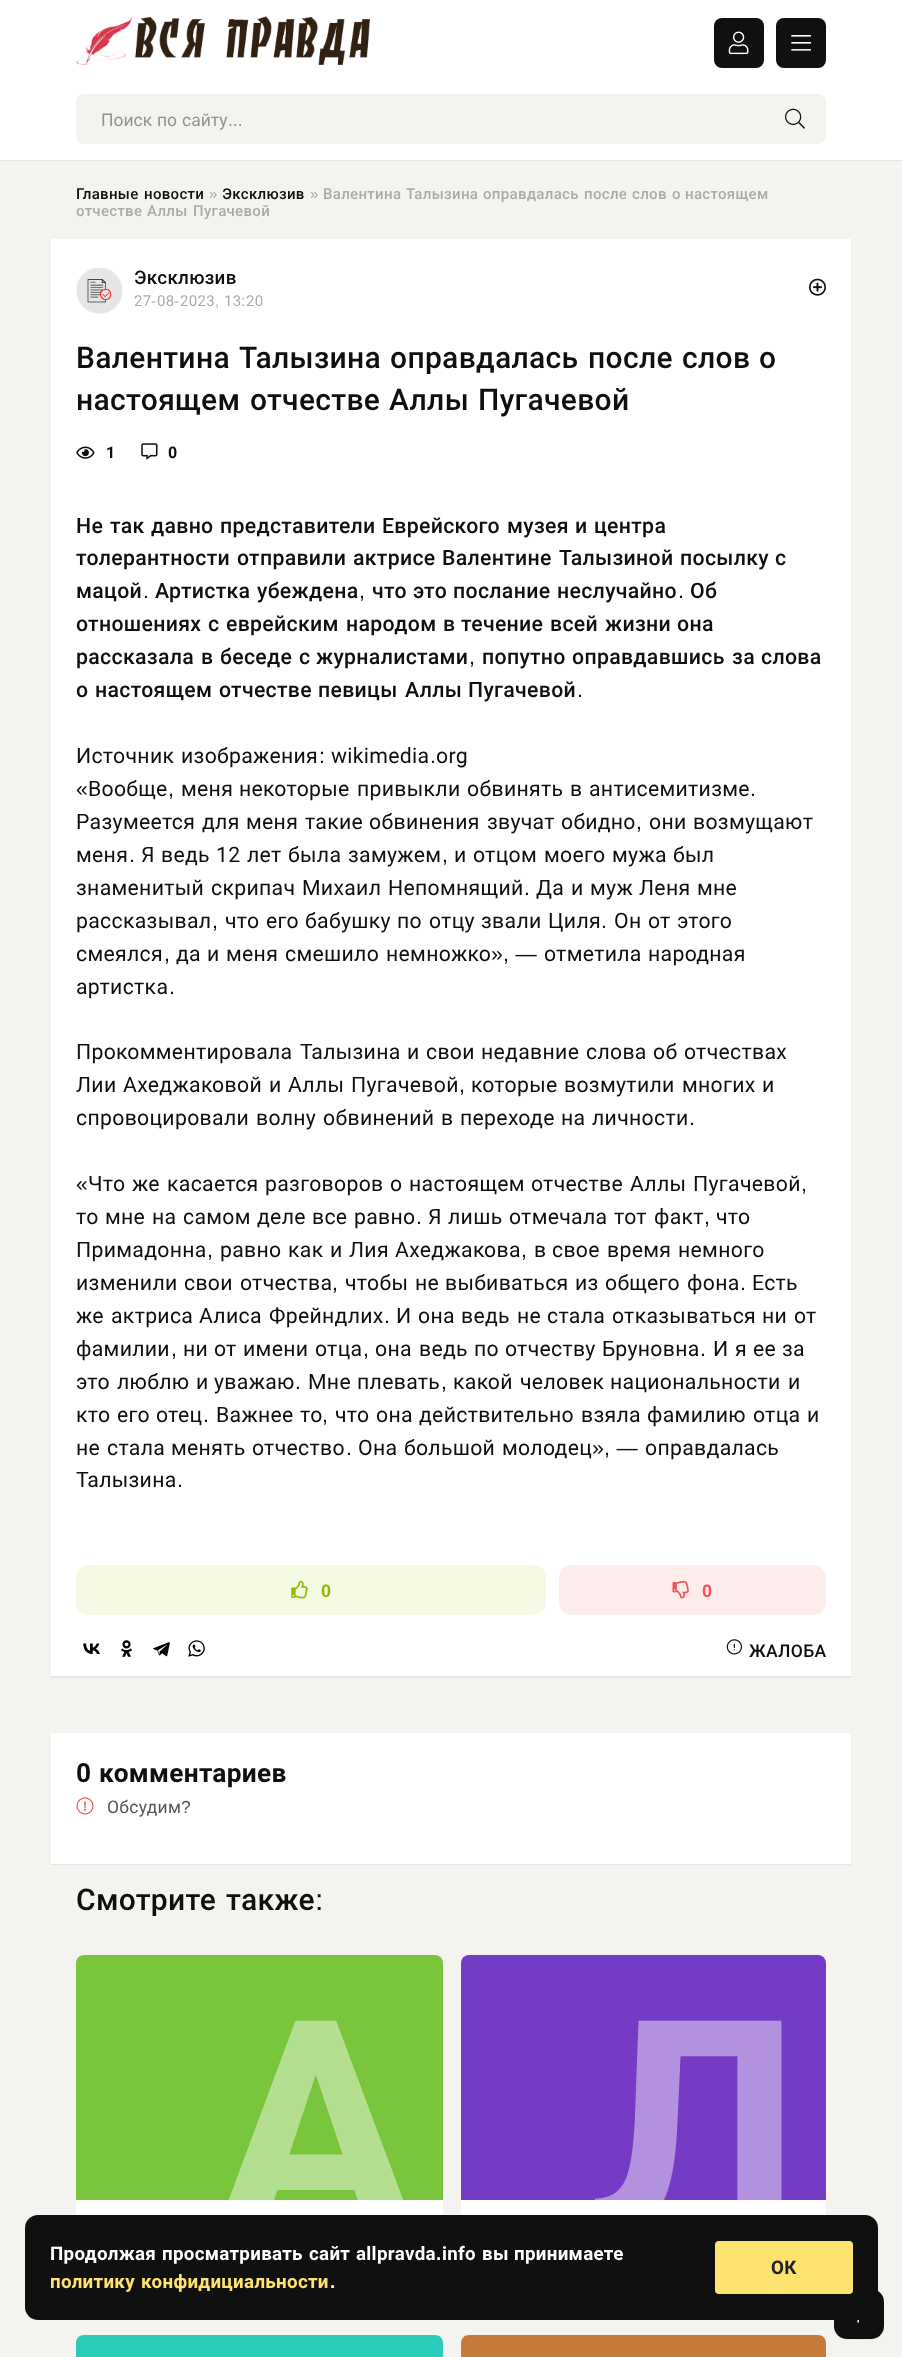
<!DOCTYPE html>
<meta charset="utf-8">
<style>body { margin: 0 } canvas { display: block }</style>
<canvas id="canvas" width="902" height="2357"></canvas>
<img id="img1" src="images/1.png" hidden>
<img id="img2" src="images/2.png" hidden>
<img id="img3" src="images/3.png" hidden>
<img id="img4" src="images/4.png" hidden>
<img id="img5" src="images/5.png" hidden>
<img id="img6" src="images/6.png" hidden>
<img id="img7" src="images/7.png" hidden>
<img id="img8" src="images/8.png" hidden>
<img id="img9" src="images/9.png" hidden>
<img id="img10" src="images/10.png" hidden>
<img id="img11" src="images/11.png" hidden>
<img id="img12" src="images/12.png" hidden>
<img id="img13" src="images/13.png" hidden>
<img id="img14" src="images/14.png" hidden>
<img id="img15" src="images/15.png" hidden>
<img id="img16" src="images/16.png" hidden>
<img id="img17" src="images/17.png" hidden>
<script>
window.onload = function () {
    const canvas = document.getElementById('canvas');
    const context = canvas.getContext('2d');
    context.miterLimit = 4;
    context.fontKerning = 'normal';

    context.fillStyle = 'rgb(244, 243, 240)';
    context.fillRect(0, 0, 902, 2357);
    context.fillStyle = 'rgb(229, 228, 225)';
    context.beginPath();
    context.moveTo(0, 160);
    context.lineTo(0, 161);
    context.lineTo(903, 161);
    context.lineTo(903, 1);
    context.lineTo(902, 1);
    context.lineTo(902, 160);
    context.closePath();
    context.fill();
    context.fillStyle = 'rgb(255, 255, 255)';
    context.fillRect(0, 0, 902, 160);
    context.drawImage(document.getElementById('img1'), 76, 16, 294, 49);
    context.fillStyle = 'rgb(16, 16, 16)';
    context.beginPath();
    context.roundRect(714, 18, 50, 50, 8);
    context.fill();
    context.drawImage(document.getElementById('img2'), 728, 31, 21, 24);
    context.beginPath();
    context.roundRect(776, 18, 50, 50, 8);
    context.fill();
    context.drawImage(document.getElementById('img3'), 791, 35, 20, 16);
    context.fillStyle = 'rgb(244, 243, 240)';
    context.beginPath();
    context.roundRect(76, 94, 750, 50, 8);
    context.fill();
    context.drawImage(document.getElementById('img4'), 785, 108, 20, 21);
    context.fillStyle = 'rgb(229, 228, 225)';
    context.beginPath();
    context.moveTo(51, 240);
    context.lineTo(51, 1678);
    context.lineTo(851, 1678);
    context.lineTo(851, 1676);
    context.lineTo(51, 1676);
    context.closePath();
    context.fill();
    context.fillStyle = 'rgb(255, 255, 255)';
    context.fillRect(51, 239, 800, 1437);
    context.drawImage(document.getElementById('img5'), 76, 267, 47, 47);
    context.drawImage(document.getElementById('img6'), 809, 278, 17, 18);
    context.drawImage(document.getElementById('img7'), 76, 446, 19, 13);
    context.drawImage(document.getElementById('img8'), 141, 443, 17, 17);
    context.fillStyle = 'rgb(244, 250, 227)';
    context.beginPath();
    context.roundRect(76, 1565, 470, 50, 13);
    context.fill();
    context.drawImage(document.getElementById('img9'), 291, 1581, 17, 18);
    context.fillStyle = 'rgb(253, 236, 236)';
    context.beginPath();
    context.roundRect(559, 1565, 267, 50, 13);
    context.fill();
    context.drawImage(document.getElementById('img10'), 672, 1580, 17, 19);
    context.drawImage(document.getElementById('img11'), 83, 1643, 17, 11);
    context.drawImage(document.getElementById('img12'), 121, 1640, 12, 17);
    context.drawImage(document.getElementById('img13'), 153, 1642, 17, 15);
    context.drawImage(document.getElementById('img14'), 188, 1640, 17, 17);
    context.drawImage(document.getElementById('img15'), 726, 1639, 16, 16);
    context.fillStyle = 'rgb(229, 228, 225)';
    context.beginPath();
    context.moveTo(51, 1734);
    context.lineTo(51, 1865);
    context.lineTo(851, 1865);
    context.lineTo(851, 1864);
    context.lineTo(51, 1864);
    context.closePath();
    context.fill();
    context.fillStyle = 'rgb(255, 255, 255)';
    context.fillRect(51, 1733, 800, 131);
    context.drawImage(document.getElementById('img16'), 76, 1797, 18, 18);
    context.beginPath();
    context.roundRect(76, 1955, 367, 361, 8);
    context.fill();
    context.fillStyle = 'rgb(121, 197, 59)';
    context.beginPath();
    context.roundRect(76, 1955, 367, 245, [8, 8, 0, 0]);
    context.fill();
    context.fillStyle = 'rgb(255, 255, 255)';
    context.beginPath();
    context.roundRect(461, 1955, 365, 361, 8);
    context.fill();
    context.fillStyle = 'rgb(117, 59, 197)';
    context.beginPath();
    context.roundRect(461, 1955, 365, 245, [8, 8, 0, 0]);
    context.fill();
    context.fillStyle = 'rgb(43, 203, 186)';
    context.beginPath();
    context.moveTo(84, 2335);
    context.lineTo(435, 2335);
    context.bezierCurveTo(439.5, 2335, 443, 2338.5, 443, 2343);
    context.lineTo(443, 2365);
    context.lineTo(76, 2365);
    context.lineTo(76, 2343);
    context.bezierCurveTo(76, 2338.5, 79.5, 2335, 84, 2335);
    context.closePath();
    context.fill();
    context.fillStyle = 'rgb(197, 124, 59)';
    context.beginPath();
    context.moveTo(469, 2335);
    context.lineTo(818, 2335);
    context.bezierCurveTo(822.5, 2335, 826, 2338.5, 826, 2343);
    context.lineTo(826, 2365);
    context.lineTo(461, 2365);
    context.lineTo(461, 2343);
    context.bezierCurveTo(461, 2338.5, 464.5, 2335, 469, 2335);
    context.closePath();
    context.fill();
    context.fillStyle = 'rgb(229, 228, 225)';
    context.beginPath();
    context.moveTo(834, 2330);
    context.bezierCurveTo(838, 2342, 850, 2340, 859, 2340);
    context.bezierCurveTo(868, 2340, 881, 2342, 884, 2330);
    context.lineTo(884, 2300);
    context.lineTo(883, 2329);
    context.lineTo(882, 2333);
    context.bezierCurveTo(877, 2341, 866, 2339, 859, 2339);
    context.bezierCurveTo(850, 2339, 838, 2341, 834, 2330);
    context.closePath();
    context.fill();
    context.fillStyle = 'rgb(16, 16, 16)';
    context.beginPath();
    context.roundRect(834, 2289, 50, 50, 13);
    context.fill();
    context.beginPath();
    context.roundRect(25, 2215, 853, 105, 13);
    context.fill();
    context.fillStyle = 'rgb(255, 227, 113)';
    context.beginPath();
    context.roundRect(715, 2241, 138, 53, 4);
    context.fill();
    context.drawImage(document.getElementById('img17'), 857, 2320, 2, 3);
    context.font = '17.5px Roboto';
    context.fillStyle = 'rgb(146, 146, 144)';
    context.fillText('Поиск', 101, 126);
    context.fillText('по', 157, 126);
    context.fillText('сайту', 182, 126);
    context.font = '17.5px Liberation Sans';
    context.fillText('...', 228, 126);
    context.letterSpacing = '0.3px';
    context.font = '500 15px Roboto';
    context.fillStyle = 'rgb(15, 15, 16)';
    context.fillText('Главные', 76, 199);
    context.fillText('новости', 144, 199);
    context.font = '15px Liberation Sans';
    context.fillStyle = 'rgb(170, 170, 170)';
    context.fillText('»', 209, 199);
    context.font = '500 15px Roboto';
    context.fillStyle = 'rgb(15, 15, 16)';
    context.fillText('Эксклюзив', 222, 199);
    context.font = '15px Liberation Sans';
    context.fillStyle = 'rgb(170, 170, 170)';
    context.fillText('»', 310, 199);
    context.font = '500 15px Roboto';
    context.fillText('Валентина', 323, 199);
    context.fillText('Талызина', 406, 199);
    context.fillText('оправдалась', 483, 199);
    context.fillText('после', 584, 199);
    context.fillText('слов', 632, 199);
    context.fillText('о', 672, 199);
    context.fillText('настоящем', 685, 199);
    context.fillText('отчестве', 76, 216);
    context.fillText('Аллы', 147, 216);
    context.fillText('Пугачевой', 193, 216);
    context.font = '500 18.75px Roboto';
    context.fillStyle = 'rgb(15, 15, 16)';
    context.fillText('Эксклюзив', 134, 284);
    context.font = '15px Roboto';
    context.fillStyle = 'rgb(170, 170, 170)';
    context.fillText('27', 134, 306);
    context.font = '15px Liberation Sans';
    context.fillText('-', 151, 306);
    context.font = '15px Roboto';
    context.fillText('08', 157, 306);
    context.font = '15px Liberation Sans';
    context.fillText('-', 174, 306);
    context.font = '15px Roboto';
    context.fillText('2023', 180, 306);
    context.fillText('13', 224, 306);
    context.font = '15px Liberation Sans';
    context.fillText(':', 241, 306);
    context.font = '15px Roboto';
    context.fillText('20', 246, 306);
    context.font = '15px Liberation Sans';
    context.fillText(',', 215, 306);
    context.font = '500 30px Roboto';
    context.fillStyle = 'rgb(15, 15, 16)';
    context.fillText('Валентина', 76, 368);
    context.fillText('Талызина', 239, 368);
    context.fillText('оправдалась', 390, 368);
    context.fillText('после', 588, 368);
    context.fillText('слов', 682, 368);
    context.fillText('о', 759, 368);
    context.fillText('настоящем', 76, 410);
    context.fillText('отчестве', 250, 410);
    context.fillText('Аллы', 389, 410);
    context.fillText('Пугачевой', 478, 410);
    context.font = 'bold 16px Roboto';
    context.fillText('1', 106, 458);
    context.fillText('0', 168, 458);
    context.font = '500 21.25px Roboto';
    context.fillText('Не', 76, 533);
    context.fillText('так', 110, 533);
    context.fillText('давно', 151, 533);
    context.fillText('представители', 220, 533);
    context.fillText('Еврейского', 382, 533);
    context.fillText('музея', 507, 533);
    context.fillText('и', 575, 533);
    context.fillText('центра', 594, 533);
    context.fillText('толерантности', 76, 565);
    context.fillText('отправили', 237, 565);
    context.fillText('актрисе', 353, 565);
    context.fillText('Валентине', 442, 565);
    context.fillText('Талызиной', 559, 565);
    context.fillText('посылку', 680, 565);
    context.fillText('с', 775, 565);
    context.fillText('мацой', 76, 598);
    context.font = '21.25px Liberation Sans';
    context.fillText('.', 143, 598);
    context.font = '500 21.25px Roboto';
    context.fillText('Артистка', 155, 598);
    context.fillText('убеждена', 257, 598);
    context.font = '21.25px Liberation Sans';
    context.fillText(',', 359, 598);
    context.font = '500 21.25px Roboto';
    context.fillText('что', 372, 598);
    context.fillText('это', 413, 598);
    context.fillText('послание', 453, 598);
    context.fillText('неслучайно', 557, 598);
    context.font = '21.25px Liberation Sans';
    context.fillText('.', 678, 598);
    context.font = '500 21.25px Roboto';
    context.fillText('Об', 690, 598);
    context.fillText('отношениях', 76, 631);
    context.fillText('с', 208, 631);
    context.fillText('еврейским', 226, 631);
    context.fillText('народом', 346, 631);
    context.fillText('в', 443, 631);
    context.fillText('течение', 461, 631);
    context.fillText('всей', 550, 631);
    context.fillText('жизни', 605, 631);
    context.fillText('она', 677, 631);
    context.fillText('рассказала', 76, 664);
    context.fillText('в', 201, 664);
    context.fillText('беседе', 220, 664);
    context.fillText('с', 299, 664);
    context.fillText('журналистами', 316, 664);
    context.font = '21.25px Liberation Sans';
    context.fillText(',', 469, 664);
    context.font = '500 21.25px Roboto';
    context.fillText('попутно', 482, 664);
    context.fillText('оправдавшись', 572, 664);
    context.fillText('за', 732, 664);
    context.fillText('слова', 761, 664);
    context.fillText('о', 76, 697);
    context.fillText('настоящем', 95, 697);
    context.fillText('отчестве', 219, 697);
    context.fillText('певицы', 318, 697);
    context.fillText('Аллы', 405, 697);
    context.fillText('Пугачевой', 468, 697);
    context.font = '21.25px Liberation Sans';
    context.fillText('.', 577, 697);
    context.font = '21.25px Roboto';
    context.fillText('Источник', 76, 763);
    context.fillText('изображения', 181, 763);
    context.font = '21.25px Liberation Sans';
    context.fillText(':', 319, 763);
    context.font = '21.25px Roboto';
    context.fillText('wikimedia', 331, 763);
    context.font = '21.25px Liberation Sans';
    context.fillText('.', 430, 763);
    context.font = '21.25px Roboto';
    context.fillText('org', 436, 763);
    context.font = '21.25px Liberation Sans';
    context.fillText('«', 76, 796);
    context.font = '21.25px Roboto';
    context.fillText('Вообще', 88, 796);
    context.fillText('меня', 181, 796);
    context.fillText('некоторые', 239, 796);
    context.fillText('привыкли', 357, 796);
    context.fillText('обвинять', 467, 796);
    context.fillText('в', 570, 796);
    context.fillText('антисемитизме', 589, 796);
    context.font = '21.25px Liberation Sans';
    context.fillText(',', 168, 796);
    context.fillText('.', 750, 796);
    context.font = '21.25px Roboto';
    context.fillText('Разумеется', 76, 829);
    context.fillText('для', 202, 829);
    context.fillText('меня', 246, 829);
    context.fillText('такие', 305, 829);
    context.fillText('обвинения', 369, 829);
    context.fillText('звучат', 487, 829);
    context.fillText('обидно', 561, 829);
    context.font = '21.25px Liberation Sans';
    context.fillText(',', 636, 829);
    context.font = '21.25px Roboto';
    context.fillText('они', 649, 829);
    context.fillText('возмущают', 693, 829);
    context.fillText('меня', 76, 862);
    context.font = '21.25px Liberation Sans';
    context.fillText('.', 129, 862);
    context.font = '21.25px Roboto';
    context.fillText('Я', 141, 862);
    context.fillText('ведь', 161, 862);
    context.fillText('12', 216, 862);
    context.fillText('лет', 247, 862);
    context.fillText('была', 288, 862);
    context.fillText('замужем', 348, 862);
    context.font = '21.25px Liberation Sans';
    context.fillText(',', 442, 862);
    context.font = '21.25px Roboto';
    context.fillText('и', 454, 862);
    context.fillText('отцом', 473, 862);
    context.fillText('моего', 544, 862);
    context.fillText('мужа', 612, 862);
    context.fillText('был', 673, 862);
    context.fillText('знаменитый', 76, 895);
    context.fillText('скрипач', 211, 895);
    context.fillText('Михаил', 302, 895);
    context.fillText('Непомнящий', 388, 895);
    context.font = '21.25px Liberation Sans';
    context.fillText('.', 524, 895);
    context.font = '21.25px Roboto';
    context.fillText('Да', 536, 895);
    context.fillText('и', 571, 895);
    context.fillText('муж', 590, 895);
    context.fillText('Леня', 639, 895);
    context.fillText('мне', 697, 895);
    context.fillText('рассказывал', 76, 928);
    context.font = '21.25px Liberation Sans';
    context.fillText(',', 212, 928);
    context.font = '21.25px Roboto';
    context.fillText('что', 225, 928);
    context.fillText('его', 266, 928);
    context.fillText('бабушку', 305, 928);
    context.fillText('по', 397, 928);
    context.fillText('отцу', 429, 928);
    context.fillText('звали', 481, 928);
    context.fillText('Циля', 548, 928);
    context.font = '21.25px Liberation Sans';
    context.fillText('.', 601, 928);
    context.font = '21.25px Roboto';
    context.fillText('Он', 614, 928);
    context.fillText('от', 648, 928);
    context.fillText('этого', 677, 928);
    context.fillText('смеялся', 76, 961);
    context.font = '21.25px Liberation Sans';
    context.fillText(',', 164, 961);
    context.font = '21.25px Roboto';
    context.fillText('да', 176, 961);
    context.fillText('и', 207, 961);
    context.fillText('меня', 226, 961);
    context.fillText('смешило', 285, 961);
    context.fillText('немножко', 386, 961);
    context.font = '21.25px Liberation Sans';
    context.fillText('», —', 491, 961);
    context.font = '21.25px Roboto';
    context.fillText('отметила', 544, 961);
    context.fillText('народная', 648, 961);
    context.fillText('артистка', 76, 994);
    context.font = '21.25px Liberation Sans';
    context.fillText('.', 169, 994);
    context.font = '21.25px Roboto';
    context.fillText('Прокомментировала', 76, 1059);
    context.fillText('Талызина', 300, 1059);
    context.fillText('и', 407, 1059);
    context.fillText('свои', 426, 1059);
    context.fillText('недавние', 481, 1059);
    context.fillText('слова', 586, 1059);
    context.fillText('об', 653, 1059);
    context.fillText('отчествах', 684, 1059);
    context.fillText('Лии', 76, 1092);
    context.fillText('Ахеджаковой', 123, 1092);
    context.fillText('и', 269, 1092);
    context.fillText('Аллы', 288, 1092);
    context.fillText('Пугачевой', 351, 1092);
    context.font = '21.25px Liberation Sans';
    context.fillText(',', 459, 1092);
    context.font = '21.25px Roboto';
    context.fillText('которые', 471, 1092);
    context.fillText('возмутили', 564, 1092);
    context.fillText('многих', 682, 1092);
    context.fillText('и', 762, 1092);
    context.fillText('спровоцировали', 76, 1125);
    context.fillText('волну', 256, 1125);
    context.fillText('обвинений', 323, 1125);
    context.fillText('в', 441, 1125);
    context.fillText('переходе', 460, 1125);
    context.fillText('на', 561, 1125);
    context.fillText('личности', 592, 1125);
    context.font = '21.25px Liberation Sans';
    context.fillText('.', 689, 1125);
    context.fillText('«', 76, 1191);
    context.font = '21.25px Roboto';
    context.fillText('Что', 88, 1191);
    context.fillText('же', 132, 1191);
    context.fillText('касается', 167, 1191);
    context.fillText('разговоров', 265, 1191);
    context.fillText('о', 390, 1191);
    context.fillText('настоящем', 409, 1191);
    context.fillText('отчестве', 531, 1191);
    context.fillText('Аллы', 630, 1191);
    context.fillText('Пугачевой', 693, 1191);
    context.font = '21.25px Liberation Sans';
    context.fillText(',', 801, 1191);
    context.font = '21.25px Roboto';
    context.fillText('то', 76, 1224);
    context.fillText('мне', 105, 1224);
    context.fillText('на', 152, 1224);
    context.fillText('самом', 183, 1224);
    context.fillText('деле', 257, 1224);
    context.fillText('все', 312, 1224);
    context.fillText('равно', 354, 1224);
    context.font = '21.25px Liberation Sans';
    context.fillText('.', 416, 1224);
    context.font = '21.25px Roboto';
    context.fillText('Я', 428, 1224);
    context.fillText('лишь', 448, 1224);
    context.fillText('отмечала', 509, 1224);
    context.fillText('тот', 614, 1224);
    context.fillText('факт', 654, 1224);
    context.font = '21.25px Liberation Sans';
    context.fillText(',', 704, 1224);
    context.font = '21.25px Roboto';
    context.fillText('что', 716, 1224);
    context.fillText('Примадонна', 76, 1257);
    context.font = '21.25px Liberation Sans';
    context.fillText(',', 207, 1257);
    context.font = '21.25px Roboto';
    context.fillText('равно', 220, 1257);
    context.fillText('как', 288, 1257);
    context.fillText('и', 330, 1257);
    context.fillText('Лия', 349, 1257);
    context.fillText('Ахеджакова', 395, 1257);
    context.font = '21.25px Liberation Sans';
    context.fillText(',', 521, 1257);
    context.font = '21.25px Roboto';
    context.fillText('в', 534, 1257);
    context.fillText('свое', 552, 1257);
    context.fillText('время', 607, 1257);
    context.fillText('немного', 678, 1257);
    context.fillText('изменили', 76, 1290);
    context.fillText('свои', 184, 1290);
    context.fillText('отчества', 240, 1290);
    context.font = '21.25px Liberation Sans';
    context.fillText(',', 332, 1290);
    context.font = '21.25px Roboto';
    context.fillText('чтобы', 345, 1290);
    context.fillText('не', 415, 1290);
    context.fillText('выбиваться', 445, 1290);
    context.fillText('из', 575, 1290);
    context.fillText('общего', 605, 1290);
    context.fillText('фона', 687, 1290);
    context.font = '21.25px Liberation Sans';
    context.fillText('.', 740, 1290);
    context.font = '21.25px Roboto';
    context.fillText('Есть', 752, 1290);
    context.fillText('же', 76, 1323);
    context.fillText('актриса', 111, 1323);
    context.fillText('Алиса', 199, 1323);
    context.fillText('Фрейндлих', 269, 1323);
    context.font = '21.25px Liberation Sans';
    context.fillText('.', 384, 1323);
    context.font = '21.25px Roboto';
    context.fillText('И', 396, 1323);
    context.fillText('она', 418, 1323);
    context.fillText('ведь', 461, 1323);
    context.fillText('не', 517, 1323);
    context.fillText('стала', 547, 1323);
    context.fillText('отказываться', 612, 1323);
    context.fillText('ни', 762, 1323);
    context.fillText('от', 794, 1323);
    context.fillText('фамилии', 76, 1356);
    context.font = '21.25px Liberation Sans';
    context.fillText(',', 171, 1356);
    context.font = '21.25px Roboto';
    context.fillText('ни', 183, 1356);
    context.fillText('от', 214, 1356);
    context.fillText('имени', 243, 1356);
    context.fillText('отца', 315, 1356);
    context.font = '21.25px Liberation Sans';
    context.fillText(',', 363, 1356);
    context.font = '21.25px Roboto';
    context.fillText('она', 375, 1356);
    context.fillText('ведь', 419, 1356);
    context.fillText('по', 474, 1356);
    context.fillText('отчеству', 505, 1356);
    context.fillText('Бруновна', 602, 1356);
    context.font = '21.25px Liberation Sans';
    context.fillText('.', 700, 1356);
    context.font = '21.25px Roboto';
    context.fillText('И', 713, 1356);
    context.fillText('я', 735, 1356);
    context.fillText('ее', 753, 1356);
    context.fillText('за', 782, 1356);
    context.fillText('это', 76, 1389);
    context.fillText('люблю', 117, 1389);
    context.fillText('и', 196, 1389);
    context.fillText('уважаю', 214, 1389);
    context.font = '21.25px Liberation Sans';
    context.fillText('.', 295, 1389);
    context.font = '21.25px Roboto';
    context.fillText('Мне', 308, 1389);
    context.fillText('плевать', 357, 1389);
    context.font = '21.25px Liberation Sans';
    context.fillText(',', 441, 1389);
    context.font = '21.25px Roboto';
    context.fillText('какой', 453, 1389);
    context.fillText('человек', 520, 1389);
    context.fillText('национальности', 610, 1389);
    context.fillText('и', 788, 1389);
    context.fillText('кто', 76, 1422);
    context.fillText('его', 117, 1422);
    context.fillText('отец', 156, 1422);
    context.font = '21.25px Liberation Sans';
    context.fillText('.', 203, 1422);
    context.font = '21.25px Roboto';
    context.fillText('Важнее', 216, 1422);
    context.fillText('то', 300, 1422);
    context.font = '21.25px Liberation Sans';
    context.fillText(',', 322, 1422);
    context.font = '21.25px Roboto';
    context.fillText('что', 335, 1422);
    context.fillText('она', 376, 1422);
    context.fillText('действительно', 419, 1422);
    context.fillText('взяла', 581, 1422);
    context.fillText('фамилию', 647, 1422);
    context.fillText('отца', 753, 1422);
    context.fillText('и', 807, 1422);
    context.fillText('не', 76, 1455);
    context.fillText('стала', 107, 1455);
    context.fillText('менять', 171, 1455);
    context.fillText('отчество', 252, 1455);
    context.font = '21.25px Liberation Sans';
    context.fillText('.', 346, 1455);
    context.font = '21.25px Roboto';
    context.fillText('Она', 358, 1455);
    context.fillText('большой', 404, 1455);
    context.fillText('молодец', 502, 1455);
    context.font = '21.25px Liberation Sans';
    context.fillText('», —', 592, 1455);
    context.font = '21.25px Roboto';
    context.fillText('оправдалась', 645, 1455);
    context.fillText('Талызина', 76, 1487);
    context.font = '21.25px Liberation Sans';
    context.fillText('.', 177, 1487);
    context.font = 'bold 17.5px Roboto';
    context.fillStyle = 'rgb(141, 187, 0)';
    context.fillText('0', 321, 1597);
    context.fillStyle = 'rgb(239, 83, 80)';
    context.fillText('0', 702, 1597);
    context.font = '500 17.5px Roboto';
    context.fillStyle = 'rgb(15, 15, 16)';
    context.fillText('ЖАЛОБА', 749, 1657);
    context.font = 'bold 26.25px Roboto';
    context.fillText('0', 76, 1782);
    context.fillText('комментариев', 99, 1782);
    context.font = '17.5px Roboto';
    context.fillStyle = 'rgb(86, 86, 86)';
    context.fillText('Обсудим', 107, 1813);
    context.font = '17.5px Liberation Sans';
    context.fillText('?', 181, 1813);
    context.font = '500 30px Roboto';
    context.fillStyle = 'rgb(15, 15, 16)';
    context.fillText('Смотрите', 76, 1910);
    context.fillText('также', 226, 1910);
    context.font = '30px Liberation Sans';
    context.fillText(':', 315, 1910);
    context.save();
    context.beginPath();
    context.rect(76, 1955, 367, 245);
    context.clip();
    context.font = 'bold 300px Roboto';
    context.fillStyle = 'rgb(180, 223, 145)';
    context.fillText('А', 215, 2234);
    context.restore();
    context.save();
    context.beginPath();
    context.rect(461, 1955, 365, 245);
    context.clip();
    context.font = 'bold 300px Roboto';
    context.fillStyle = 'rgb(178, 145, 223)';
    context.fillText('Л', 589, 2234);
    context.restore();
    context.font = 'bold 18.75px Roboto';
    context.fillStyle = 'rgb(255, 255, 255)';
    context.fillText('Продолжая', 50, 2260);
    context.fillText('просматривать', 162, 2260);
    context.fillText('сайт', 309, 2260);
    context.fillText('allpravda', 356, 2260);
    context.font = 'bold 18.75px Liberation Sans';
    context.fillText('.', 436, 2260);
    context.font = 'bold 18.75px Roboto';
    context.fillText('info', 442, 2260);
    context.fillText('вы', 482, 2260);
    context.fillText('принимаете', 514, 2260);
    context.fillStyle = 'rgb(255, 227, 113)';
    context.fillText('политику', 50, 2288);
    context.fillText('конфидициальности', 141, 2288);
    context.font = 'bold 18.75px Liberation Sans';
    context.fillStyle = 'rgb(255, 255, 255)';
    context.fillText('.', 330, 2288);
    context.font = 'bold 18.75px Roboto';
    context.fillStyle = 'rgb(33, 33, 33)';
    context.fillText('ОК', 771, 2274);
};
</script>
